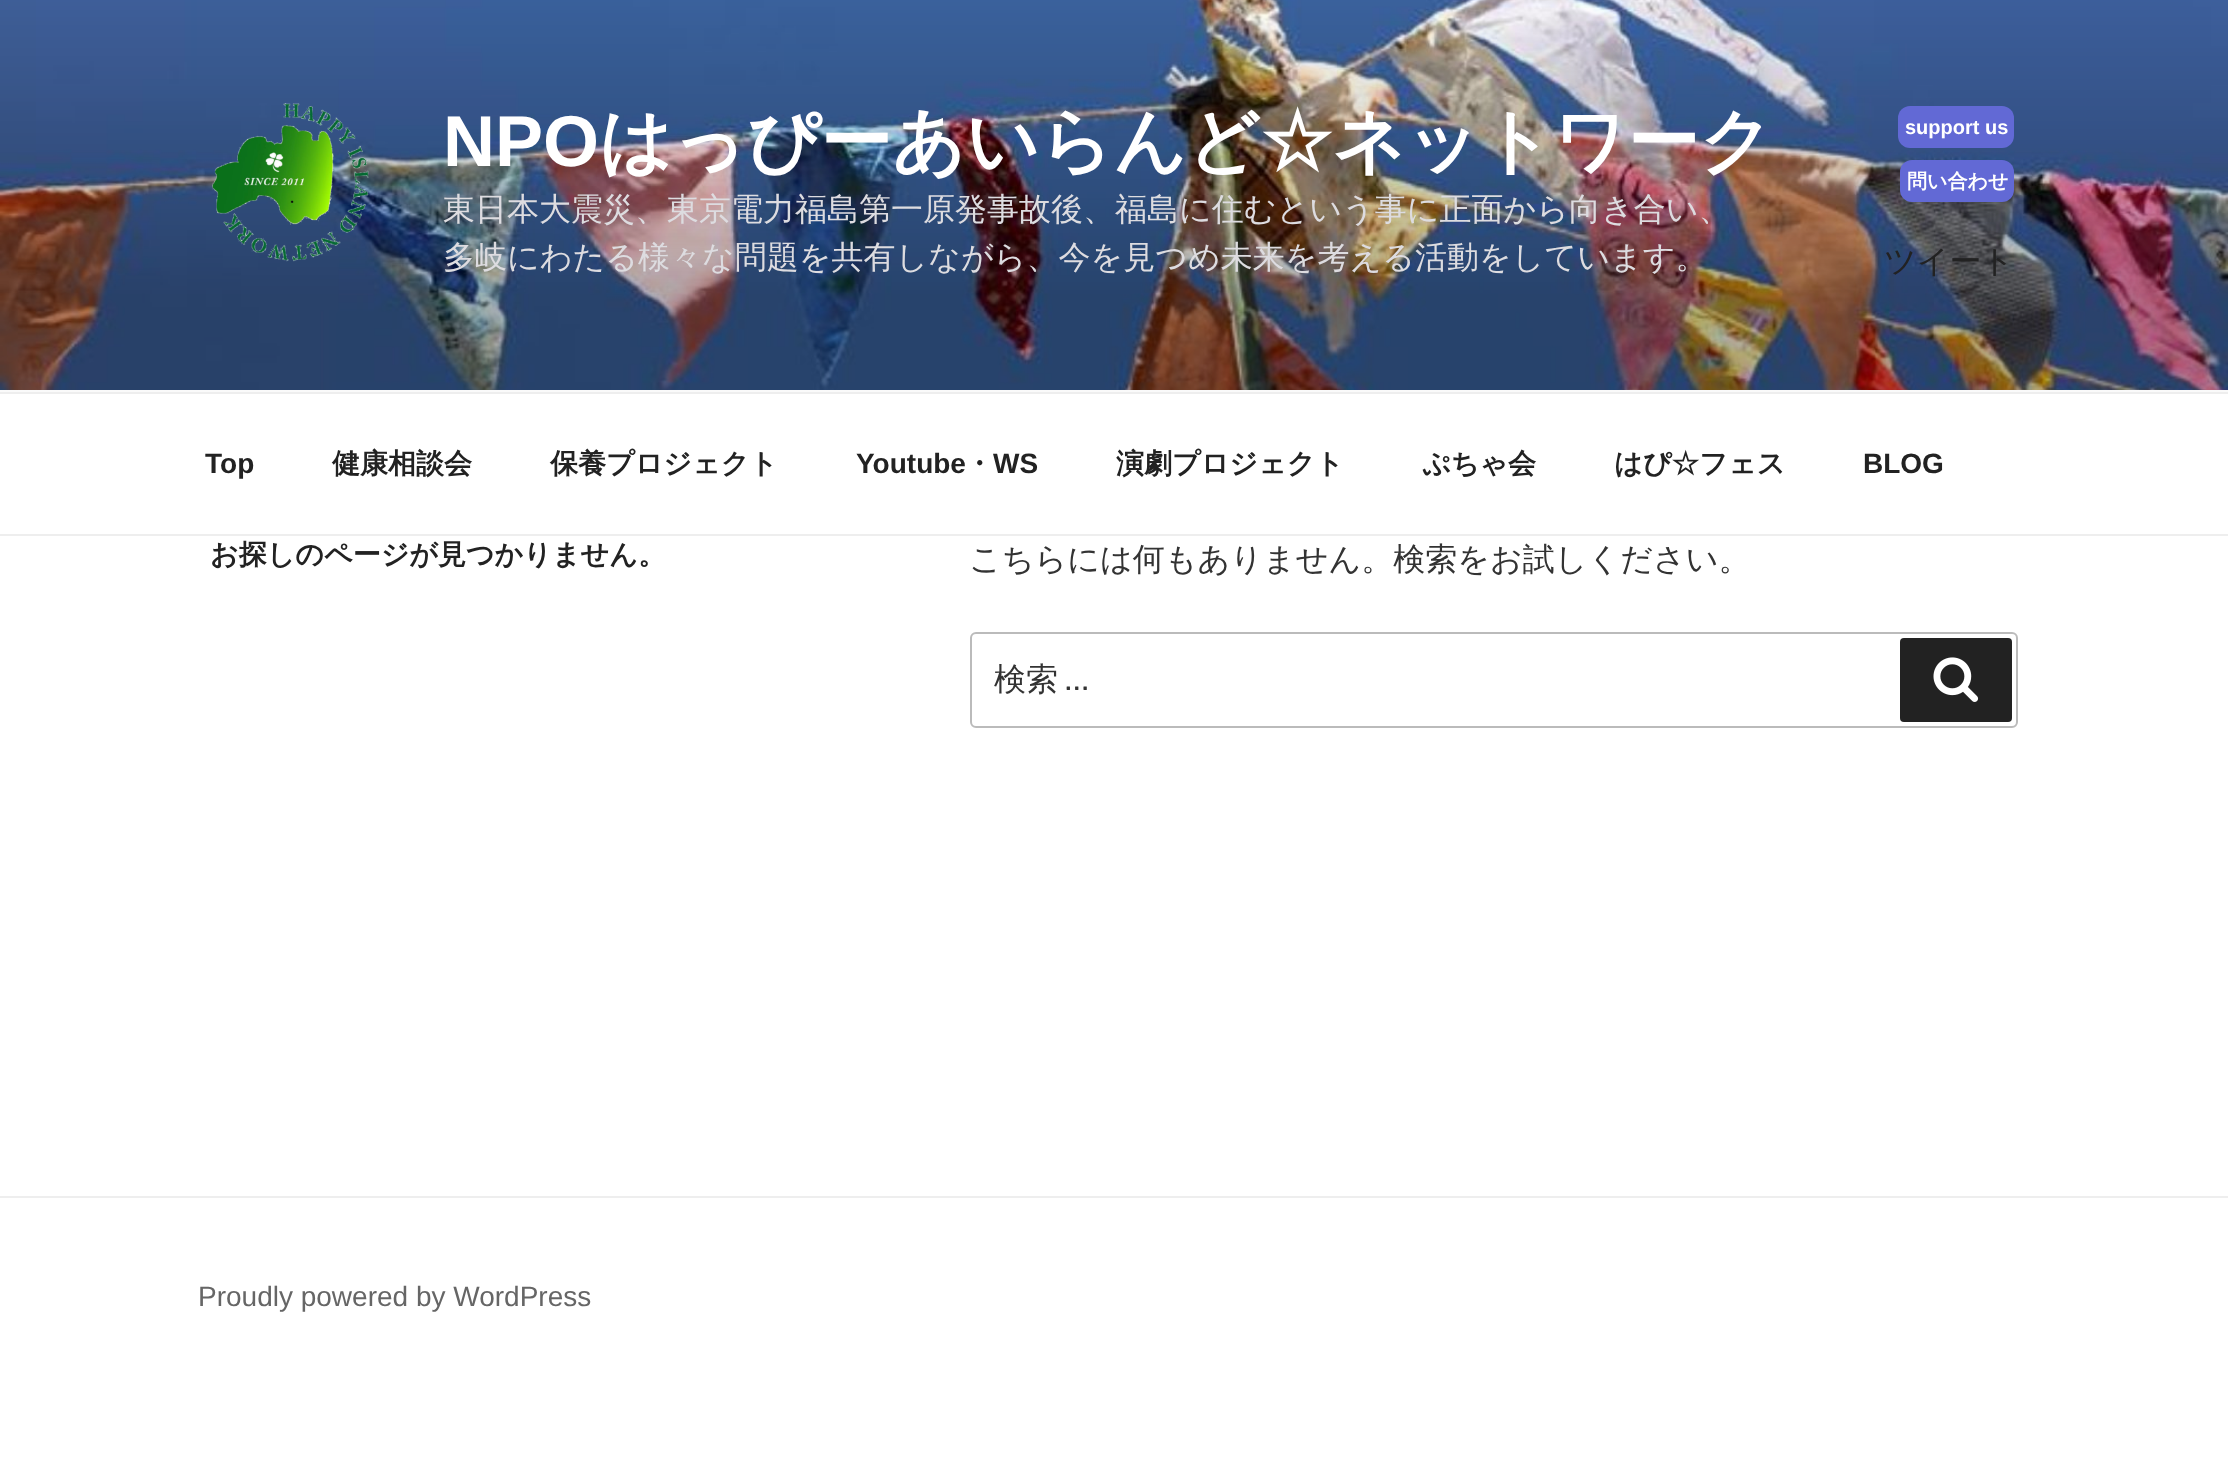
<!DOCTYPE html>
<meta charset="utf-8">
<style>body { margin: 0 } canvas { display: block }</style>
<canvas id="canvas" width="2228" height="1459"></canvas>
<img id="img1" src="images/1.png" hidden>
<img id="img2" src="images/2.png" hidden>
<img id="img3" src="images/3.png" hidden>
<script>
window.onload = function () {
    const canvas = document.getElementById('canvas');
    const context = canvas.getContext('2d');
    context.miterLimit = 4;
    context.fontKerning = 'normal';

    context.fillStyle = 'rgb(255, 255, 255)';
    context.fillRect(0, 0, 2228, 1459);
    context.fillStyle = 'rgb(250, 250, 250)';
    context.fillRect(0, 390, 2228, 2);
    context.drawImage(document.getElementById('img1'), 0, 0, 2228, 390);
    context.drawImage(document.getElementById('img2'), 212, 103, 157, 159);
    context.fillStyle = 'rgb(98, 105, 213)';
    context.beginPath();
    context.roundRect(1898, 106, 116, 42, 12);
    context.fill();
    context.beginPath();
    context.roundRect(1900, 160, 114, 42, 12);
    context.fill();
    context.fillStyle = 'rgb(238, 238, 238)';
    context.fillRect(0, 392, 2228, 2);
    context.fillRect(0, 534, 2228, 2);
    context.beginPath();
    context.roundRect(971, 633, 1046, 94, 5);
    context.strokeStyle = 'rgb(187, 187, 187)';
    context.lineWidth = 2;
    context.stroke();
    context.fillStyle = 'rgb(34, 34, 34)';
    context.beginPath();
    context.roundRect(1900, 638, 112, 84, 4);
    context.fill();
    context.drawImage(document.getElementById('img3'), 1933, 657, 46, 45);
    context.fillStyle = 'rgb(238, 238, 238)';
    context.fillRect(0, 1196, 2228, 2);
    context.font = 'bold 72px Liberation Sans';
    context.fillStyle = 'rgb(255, 255, 255)';
    context.fillText('NPO', 443, 166);
    context.font = 'bold 72px WenQuanYi Zen Hei';
    context.fillText('はっぴーあいらんど☆ネットワーク', 599, 166);
    context.font = '500 32px WenQuanYi Zen Hei';
    context.fillStyle = 'rgb(221, 220, 224)';
    context.fillText('東日本大震災、東京電力福島第一原発事故後、福島に住むという事に正面から向き合い、', 443, 220);
    context.fillText('多岐にわたる様々な問題を共有しながら、今を見つめ未来を考える活動をしています。', 443, 268);
    context.font = 'bold 20px Liberation Sans';
    context.fillStyle = 'rgb(255, 255, 255)';
    context.fillText('support us', 1905, 134);
    context.font = 'bold 20px WenQuanYi Zen Hei';
    context.fillText('問い合わせ', 1907, 188);
    context.font = '500 32px WenQuanYi Zen Hei';
    context.fillStyle = 'rgb(34, 34, 34)';
    context.fillText('ツイート', 1884, 272);
    context.font = 'bold 28px Liberation Sans';
    context.fillText('Top', 205, 473);
    context.font = 'bold 28px WenQuanYi Zen Hei';
    context.fillText('健康相談会', 332, 473);
    context.fillText('保養プロジェクト', 550, 473);
    context.font = 'bold 28px Liberation Sans';
    context.fillText('Youtube', 856, 473);
    context.font = 'bold 28px WenQuanYi Zen Hei';
    context.fillText('・', 965, 473);
    context.font = 'bold 28px Liberation Sans';
    context.fillText('WS', 993, 473);
    context.font = 'bold 28px WenQuanYi Zen Hei';
    context.fillText('演劇プロジェクト', 1116, 473);
    context.fillText('ぷちゃ会', 1422, 473);
    context.fillText('はぴ☆フェス', 1614, 473);
    context.font = 'bold 28px Liberation Sans';
    context.fillText('BLOG', 1863, 473);
    context.font = 'bold 28px WenQuanYi Zen Hei';
    context.fillText('お探しのページが見つかりません。', 210, 564);
    context.font = '500 32px WenQuanYi Zen Hei';
    context.fillStyle = 'rgb(51, 51, 51)';
    context.fillText('こちらには何もありません。検索をお試しください。', 969, 570);
    context.fillText('検索', 994, 690);
    context.font = '32px Libre Franklin';
    context.fillText('…', 1065, 690);
    context.font = '28px Liberation Sans';
    context.fillStyle = 'rgb(102, 102, 102)';
    context.fillText('Proudly powered by WordPress', 198, 1306);
};
</script>
